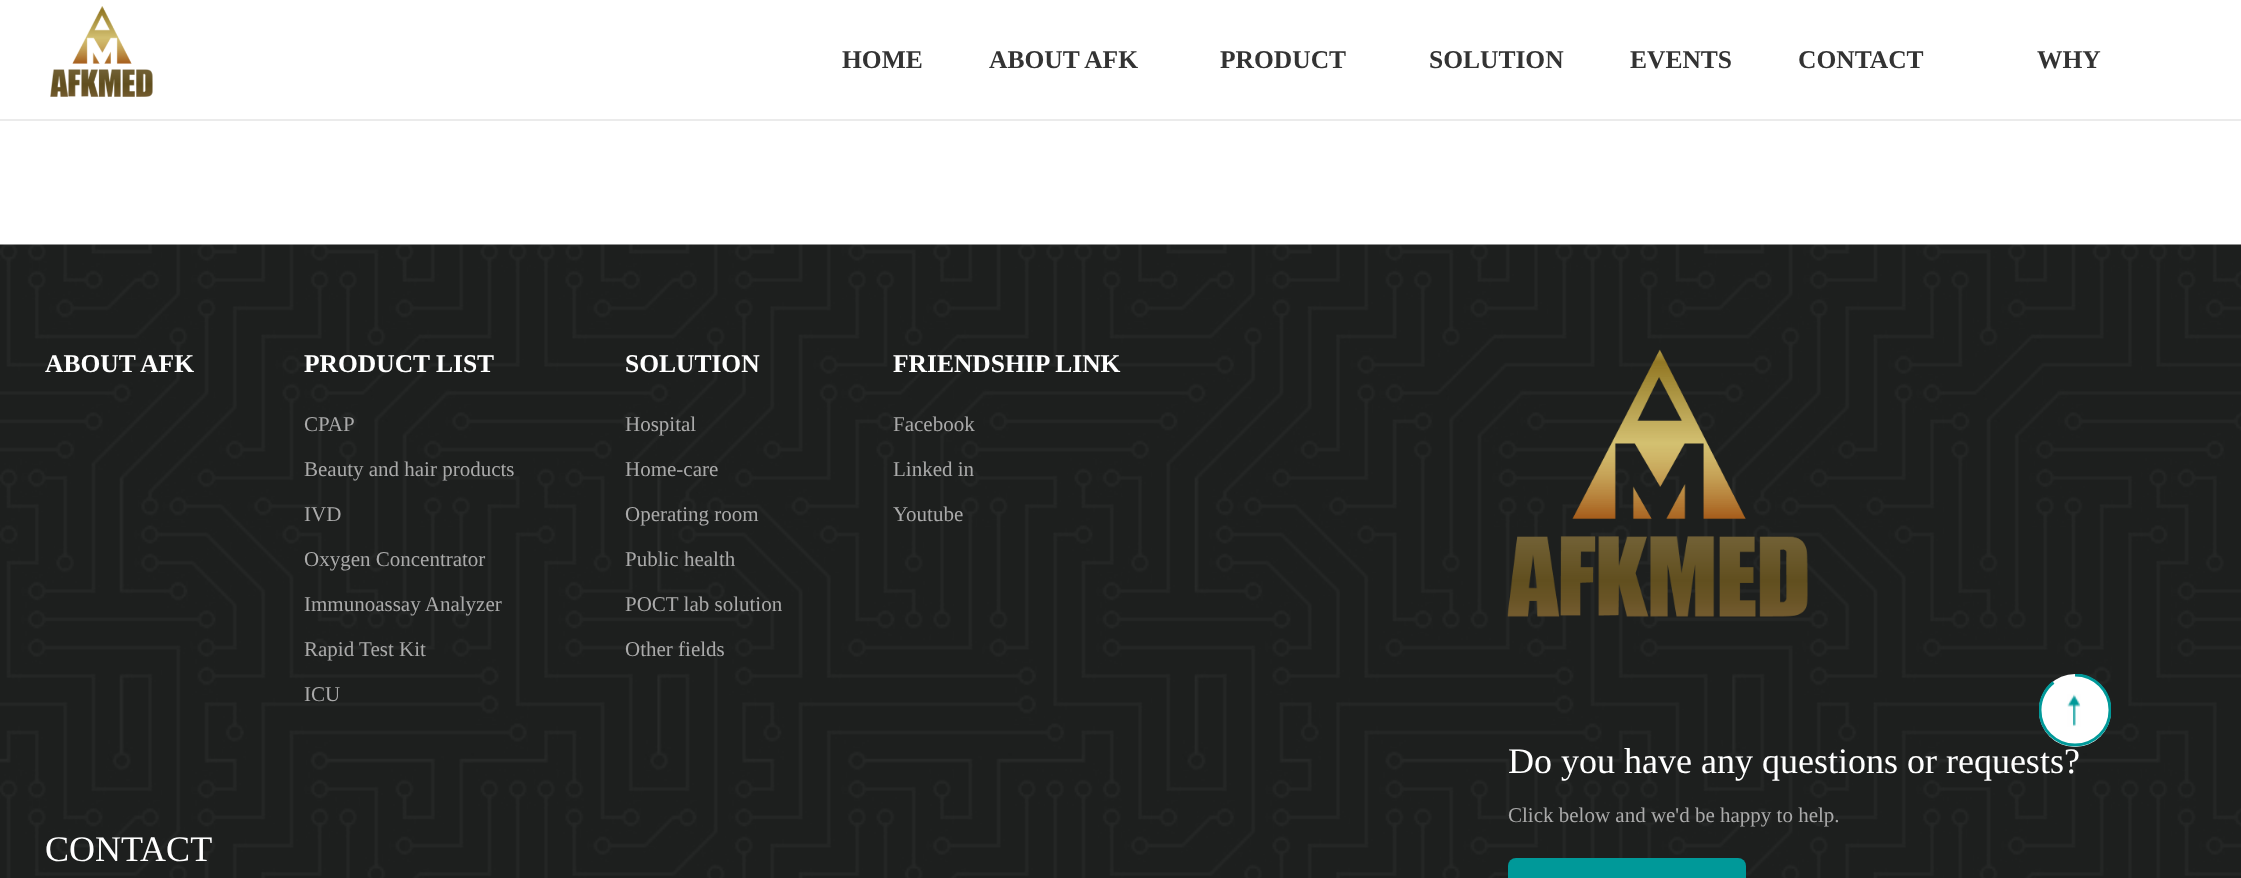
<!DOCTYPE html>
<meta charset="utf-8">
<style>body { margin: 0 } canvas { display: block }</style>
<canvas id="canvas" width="2241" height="878"></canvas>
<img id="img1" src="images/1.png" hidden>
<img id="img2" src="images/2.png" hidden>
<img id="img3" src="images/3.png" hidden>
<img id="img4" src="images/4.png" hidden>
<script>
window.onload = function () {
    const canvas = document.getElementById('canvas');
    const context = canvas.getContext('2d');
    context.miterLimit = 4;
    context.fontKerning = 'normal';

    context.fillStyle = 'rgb(255, 255, 255)';
    context.fillRect(0, 0, 2241, 878);
    context.drawImage(document.getElementById('img1'), 50, 6, 103, 91);
    context.fillStyle = 'rgb(235, 235, 235)';
    context.fillRect(0, 119, 2241, 2);
    context.drawImage(document.getElementById('img2'), 0, 244, 2241, 634);
    context.drawImage(document.getElementById('img3'), 1507, 349, 301, 268);
    context.fillStyle = 'rgb(0, 153, 153)';
    context.beginPath();
    context.roundRect(1508, 858, 238, 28, 8);
    context.fill();
    context.fillStyle = 'rgb(255, 255, 255)';
    context.beginPath();
    context.roundRect(2039, 674, 72, 73, 36);
    context.fill();
    context.save();
    context.beginPath();
    context.rect(2039, 674, 72, 73);
    context.clip();
    context.beginPath();
    context.moveTo(2075, 675);
    context.bezierCurveTo(2094.5, 675, 2110, 690.5, 2110, 710);
    context.bezierCurveTo(2110, 729.5, 2094.5, 745, 2075, 745);
    context.bezierCurveTo(2055.5, 745, 2040, 729.5, 2040, 710);
    context.bezierCurveTo(2040, 699, 2045.5, 688.5, 2053.5, 682.5);
    context.strokeStyle = 'rgb(0, 153, 153)';
    context.lineWidth = 2.9;
    context.stroke();
    context.restore();
    context.drawImage(document.getElementById('img4'), 2067, 694, 14, 33);
    context.font = 'bold 25.5px Liberation Serif';
    context.fillStyle = 'rgb(51, 51, 51)';
    context.fillText('HOME', 842, 68);
    context.fillText('ABOUT AFK', 989, 68);
    context.fillText('PRODUCT', 1220, 68);
    context.fillText('SOLUTION', 1429, 68);
    context.fillText('EVENTS', 1630, 68);
    context.fillText('CONTACT', 1798, 68);
    context.fillText('WHY', 2037, 68);
    context.fillStyle = 'rgb(255, 255, 255)';
    context.fillText('ABOUT AFK', 45, 372);
    context.fillText('PRODUCT LIST', 304, 372);
    context.font = '21px Liberation Serif';
    context.fillStyle = 'rgb(170, 170, 170)';
    context.fillText('CPAP', 304, 431);
    context.fillText('Beauty and hair products', 304, 476);
    context.fillText('IVD', 304, 521);
    context.fillText('Oxygen Concentrator', 304, 566);
    context.fillText('Immunoassay Analyzer', 304, 611);
    context.fillText('Rapid Test Kit', 304, 656);
    context.fillText('ICU', 304, 701);
    context.font = 'bold 25.5px Liberation Serif';
    context.fillStyle = 'rgb(255, 255, 255)';
    context.fillText('SOLUTION', 625, 372);
    context.font = '21px Liberation Serif';
    context.fillStyle = 'rgb(170, 170, 170)';
    context.fillText('Hospital', 625, 431);
    context.fillText('Home-care', 625, 476);
    context.fillText('Operating room', 625, 521);
    context.fillText('Public health', 625, 566);
    context.fillText('POCT lab solution', 625, 611);
    context.fillText('Other fields', 625, 656);
    context.font = 'bold 25.5px Liberation Serif';
    context.fillStyle = 'rgb(255, 255, 255)';
    context.fillText('FRIENDSHIP LINK', 893, 372);
    context.font = '21px Liberation Serif';
    context.fillStyle = 'rgb(170, 170, 170)';
    context.fillText('Facebook', 893, 431);
    context.fillText('Linked in', 893, 476);
    context.fillText('Youtube', 893, 521);
    context.font = '36px Liberation Serif';
    context.fillStyle = 'rgb(255, 255, 255)';
    context.fillText('CONTACT', 45, 861);
    context.fillText('Do you have any questions or requests?', 1508, 773);
    context.font = '21px Liberation Serif';
    context.fillStyle = 'rgb(170, 170, 170)';
    context.fillText('Click below and we\'d be happy to help.', 1508, 822);
};
</script>
